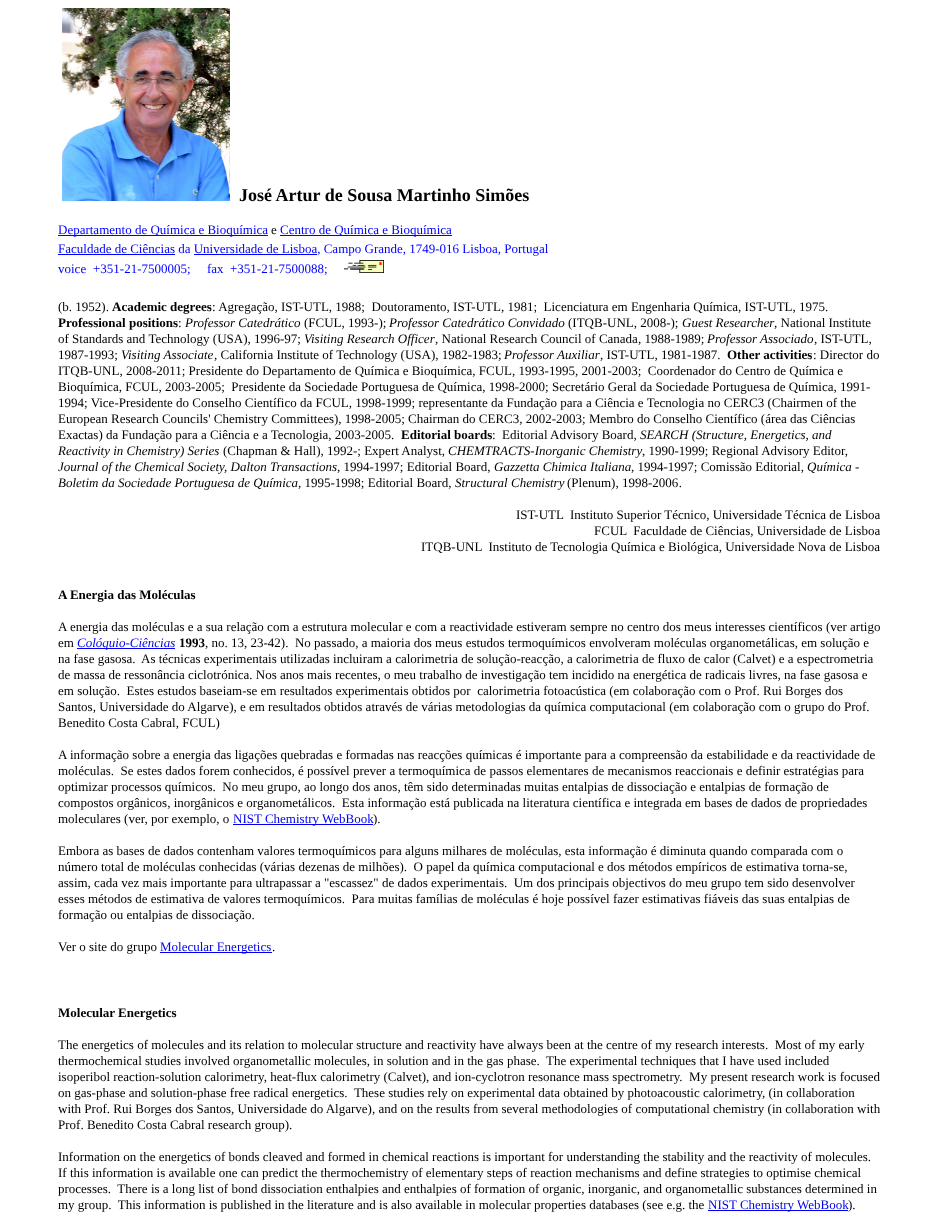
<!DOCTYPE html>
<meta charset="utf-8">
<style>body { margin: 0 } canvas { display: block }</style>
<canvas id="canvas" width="939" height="1218"></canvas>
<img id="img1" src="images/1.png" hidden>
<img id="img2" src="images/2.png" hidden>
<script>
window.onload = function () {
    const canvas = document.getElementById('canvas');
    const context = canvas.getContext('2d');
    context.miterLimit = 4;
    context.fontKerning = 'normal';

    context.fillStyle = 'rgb(255, 255, 255)';
    context.fillRect(0, 0, 939, 1218);
    context.drawImage(document.getElementById('img1'), 62, 8, 168, 193);
    context.fillStyle = 'rgb(0, 0, 255)';
    context.fillRect(58, 235, 210, 1);
    context.fillRect(280, 235, 172, 1);
    context.fillRect(58, 254, 117, 1);
    context.fillRect(194, 254, 123, 1);
    context.drawImage(document.getElementById('img2'), 344, 260, 40, 13);
    context.fillStyle = 'rgb(0, 0, 238)';
    context.fillRect(77, 648, 98, 1);
    context.fillRect(233, 824, 140, 1);
    context.fillRect(160, 952, 112, 1);
    context.fillRect(708, 1210, 140, 1);
    context.font = 'bold 18px Liberation Serif';
    context.fillStyle = 'rgb(0, 0, 0)';
    context.fillText('José Artur de Sousa Martinho Simões', 239, 201);
    context.font = '13px Liberation Serif';
    context.fillStyle = 'rgb(0, 0, 255)';
    context.fillText('Departamento de Química e Bioquímica', 58, 234);
    context.fillStyle = 'rgb(0, 0, 0)';
    context.fillText('e', 271, 234);
    context.fillStyle = 'rgb(0, 0, 255)';
    context.fillText('Centro de Química e Bioquímica', 280, 234);
    context.fillText('Faculdade de Ciências da Universidade de Lisboa, Campo Grande, 1749-016 Lisboa, Portugal', 58, 253);
    context.fillText('voice', 58, 273);
    context.fillText('+351-21-7500005;', 93, 273);
    context.fillText('fax', 207, 273);
    context.fillText('+351-21-7500088;', 230, 273);
    context.fillStyle = 'rgb(0, 0, 0)';
    context.fillText('(b. 1952).', 58, 311);
    context.font = 'bold 13px Liberation Serif';
    context.fillText('Academic degrees', 112, 311);
    context.font = '13px Liberation Serif';
    context.fillText(': Agregação, IST-UTL, 1988;  Doutoramento, IST-UTL, 1981;  Licenciatura em Engenharia Química, IST-UTL, 1975.', 212, 311);
    context.font = 'bold 13px Liberation Serif';
    context.fillText('Professional positions', 58, 327);
    context.font = '13px Liberation Serif';
    context.fillText(':', 178, 327);
    context.font = 'italic 13px Liberation Serif';
    context.fillText('Professor Catedrático', 185, 327);
    context.font = '13px Liberation Serif';
    context.fillText('(FCUL, 1993-);', 304, 327);
    context.font = 'italic 13px Liberation Serif';
    context.fillText('Professor Catedrático Convidado', 389, 327);
    context.font = '13px Liberation Serif';
    context.fillText('(ITQB-UNL, 2008-);', 568, 327);
    context.font = 'italic 13px Liberation Serif';
    context.fillText('Guest Researcher', 682, 327);
    context.font = '13px Liberation Serif';
    context.fillText(', National Institute', 774, 327);
    context.fillText('of Standards and Technology (USA), 1996-97;', 58, 343);
    context.font = 'italic 13px Liberation Serif';
    context.fillText('Visiting Research Officer', 304, 343);
    context.font = '13px Liberation Serif';
    context.fillText(', National Research Council of Canada, 1988-1989;', 435, 343);
    context.font = 'italic 13px Liberation Serif';
    context.fillText('Professor Associado', 707, 343);
    context.font = '13px Liberation Serif';
    context.fillText(', IST-UTL,', 814, 343);
    context.fillText('1987-1993;', 58, 359);
    context.font = 'italic 13px Liberation Serif';
    context.fillText('Visiting Associate', 121, 359);
    context.font = '13px Liberation Serif';
    context.fillText(', California Institute of Technology (USA), 1982-1983;', 214, 359);
    context.font = 'italic 13px Liberation Serif';
    context.fillText('Professor Auxiliar', 504, 359);
    context.font = '13px Liberation Serif';
    context.fillText(', IST-UTL, 1981-1987.', 600, 359);
    context.font = 'bold 13px Liberation Serif';
    context.fillText('Other activities', 727, 359);
    context.font = '13px Liberation Serif';
    context.fillText(': Director do', 813, 359);
    context.fillText('ITQB-UNL, 2008-2011; Presidente do Departamento de Química e Bioquímica, FCUL, 1993-1995, 2001-2003;  Coordenador do Centro de Química e', 58, 375);
    context.fillText('Bioquímica, FCUL, 2003-2005;  Presidente da Sociedade Portuguesa de Química, 1998-2000; Secretário Geral da Sociedade Portuguesa de Química, 1991-', 58, 391);
    context.fillText('1994; Vice-Presidente do Conselho Científico da FCUL, 1998-1999; representante da Fundação para a Ciência e Tecnologia no CERC3 (Chairmen of the', 58, 407);
    context.fillText('European Research Councils\' Chemistry Committees), 1998-2005; Chairman do CERC3, 2002-2003; Membro do Conselho Científico (área das Ciências', 58, 423);
    context.fillText('Exactas) da Fundação para a Ciência e a Tecnologia, 2003-2005.', 58, 439);
    context.font = 'bold 13px Liberation Serif';
    context.fillText('Editorial boards', 401, 439);
    context.font = '13px Liberation Serif';
    context.fillText(':', 492, 439);
    context.fillText('Editorial Advisory Board,', 502, 439);
    context.font = 'italic 13px Liberation Serif';
    context.fillText('SEARCH (Structure, Energetics, and', 640, 439);
    context.fillText('Reactivity in Chemistry) Series', 58, 455);
    context.font = '13px Liberation Serif';
    context.fillText('(Chapman & Hall), 1992-; Expert Analyst,', 223, 455);
    context.font = 'italic 13px Liberation Serif';
    context.fillText('CHEMTRACTS-Inorganic Chemistry', 448, 455);
    context.font = '13px Liberation Serif';
    context.fillText(', 1990-1999; Regional Advisory Editor,', 642, 455);
    context.font = 'italic 13px Liberation Serif';
    context.fillText('Journal of the Chemical Society, Dalton Transactions', 58, 471);
    context.font = '13px Liberation Serif';
    context.fillText(', 1994-1997; Editorial Board,', 337, 471);
    context.font = 'italic 13px Liberation Serif';
    context.fillText('Gazzetta Chimica Italiana', 494, 471);
    context.font = '13px Liberation Serif';
    context.fillText(', 1994-1997; Comissão Editorial,', 631, 471);
    context.font = 'italic 13px Liberation Serif';
    context.fillText('Química -', 807, 471);
    context.fillText('Boletim da Sociedade Portuguesa de Química', 58, 487);
    context.font = '13px Liberation Serif';
    context.fillText(', 1995-1998; Editorial Board,', 298, 487);
    context.font = 'italic 13px Liberation Serif';
    context.fillText('Structural Chemistry', 455, 487);
    context.font = '13px Liberation Serif';
    context.fillText('(Plenum), 1998-2006', 567, 487);
    context.font = 'italic 13px Liberation Serif';
    context.fillText('.', 679, 487);
    context.font = '13px Liberation Serif';
    context.fillText('IST-UTL  Instituto Superior Técnico, Universidade Técnica de Lisboa', 516, 519);
    context.fillText('FCUL  Faculdade de Ciências, Universidade de Lisboa', 594, 535);
    context.fillText('ITQB-UNL  Instituto de Tecnologia Química e Biológica, Universidade Nova de Lisboa', 421, 551);
    context.font = 'bold 13px Liberation Serif';
    context.fillText('A Energia das Moléculas', 58, 599);
    context.font = '13px Liberation Serif';
    context.fillText('A energia das moléculas e a sua relação com a estrutura molecular e com a reactividade estiveram sempre no centro dos meus interesses científicos (ver artigo', 58, 631);
    context.fillText('em', 58, 647);
    context.font = 'italic 13px Liberation Serif';
    context.fillStyle = 'rgb(0, 0, 238)';
    context.fillText('Colóquio-Ciências', 77, 647);
    context.font = 'bold 13px Liberation Serif';
    context.fillStyle = 'rgb(0, 0, 0)';
    context.fillText('1993', 179, 647);
    context.font = '13px Liberation Serif';
    context.fillText(', no. 13, 23-42).  No passado, a maioria dos meus estudos termoquímicos envolveram moléculas organometálicas, em solução e', 205, 647);
    context.fillText('na fase gasosa.', 58, 663);
    context.fillText('As técnicas experimentais utilizadas incluiram a calorimetria de solução-reacção, a calorimetria de fluxo de calor (Calvet) e a espectrometria', 141, 663);
    context.fillText('de massa de ressonância ciclotrónica. Nos anos mais recentes, o meu trabalho de investigação tem incidido na energética de radicais livres, na fase gasosa e', 58, 679);
    context.fillText('em solução.  Estes estudos baseiam-se em resultados experimentais obtidos por  calorimetria fotoacústica (em colaboração com o Prof. Rui Borges dos', 58, 695);
    context.fillText('Santos, Universidade do Algarve), e em resultados obtidos através de várias metodologias da química computacional (em colaboração com o grupo do Prof.', 58, 711);
    context.fillText('Benedito Costa Cabral, FCUL)', 58, 727);
    context.fillText('A informação sobre a energia das ligações quebradas e formadas nas reacções químicas é importante para a compreensão da estabilidade e da reactividade de', 58, 759);
    context.fillText('moléculas.  Se estes dados forem conhecidos, é possível prever a termoquímica de passos elementares de mecanismos reaccionais e definir estratégias para', 58, 775);
    context.fillText('optimizar processos químicos.  No meu grupo, ao longo dos anos, têm sido determinadas muitas entalpias de dissociação e entalpias de formação de', 58, 791);
    context.fillText('compostos orgânicos, inorgânicos e organometálicos.  Esta informação está publicada na literatura científica e integrada em bases de dados de propriedades', 58, 807);
    context.fillText('moleculares (ver, por exemplo, o', 58, 823);
    context.fillStyle = 'rgb(0, 0, 238)';
    context.fillText('NIST Chemistry WebBook', 233, 823);
    context.fillStyle = 'rgb(0, 0, 0)';
    context.fillText(').', 373, 823);
    context.fillText('Embora as bases de dados contenham valores termoquímicos para alguns milhares de moléculas, esta informação é diminuta quando comparada com o', 58, 855);
    context.fillText('número total de moléculas conhecidas (várias dezenas de milhões).  O papel da química computacional e dos métodos empíricos de estimativa torna-se,', 58, 871);
    context.fillText('assim, cada vez mais importante para ultrapassar a "escassez" de dados experimentais.  Um dos principais objectivos do meu grupo tem sido desenvolver', 58, 887);
    context.fillText('esses métodos de estimativa de valores termoquímicos.  Para muitas famílias de moléculas é hoje possível fazer estimativas fiáveis das suas entalpias de', 58, 903);
    context.fillText('formação ou entalpias de dissociação.', 58, 919);
    context.fillText('Ver o site do grupo', 58, 951);
    context.fillStyle = 'rgb(0, 0, 238)';
    context.fillText('Molecular Energetics', 160, 951);
    context.fillStyle = 'rgb(0, 0, 0)';
    context.fillText('.', 272, 951);
    context.font = 'bold 13px Liberation Serif';
    context.fillText('Molecular Energetics', 58, 1017);
    context.font = '13px Liberation Serif';
    context.fillText('The energetics of molecules and its relation to molecular structure and reactivity have always been at the centre of my research interests.  Most of my early', 58, 1049);
    context.fillText('thermochemical studies involved organometallic molecules, in solution and in the gas phase.  The experimental techniques that I have used included', 58, 1065);
    context.fillText('isoperibol reaction-solution calorimetry, heat-flux calorimetry (Calvet), and ion-cyclotron resonance mass spectrometry.  My present research work is focused', 58, 1081);
    context.fillText('on gas-phase and solution-phase free radical energetics.  These studies rely on experimental data obtained by photoacoustic calorimetry, (in collaboration', 58, 1097);
    context.fillText('with Prof. Rui Borges dos Santos, Universidade do Algarve), and on the results from several methodologies of computational chemistry (in collaboration with', 58, 1113);
    context.fillText('Prof. Benedito Costa Cabral research group).', 58, 1129);
    context.fillText('Information on the energetics of bonds cleaved and formed in chemical reactions is important for understanding the stability and the reactivity of molecules.', 58, 1161);
    context.fillText('If this information is available one can predict the thermochemistry of elementary steps of reaction mechanisms and define strategies to optimise chemical', 58, 1177);
    context.fillText('processes.  There is a long list of bond dissociation enthalpies and enthalpies of formation of organic, inorganic, and organometallic substances determined in', 58, 1193);
    context.fillText('my group.  This information is published in the literature and is also available in molecular properties databases (see e.g. the', 58, 1209);
    context.fillStyle = 'rgb(0, 0, 238)';
    context.fillText('NIST Chemistry WebBook', 708, 1209);
    context.fillStyle = 'rgb(0, 0, 0)';
    context.fillText(').', 848, 1209);
};
</script>
